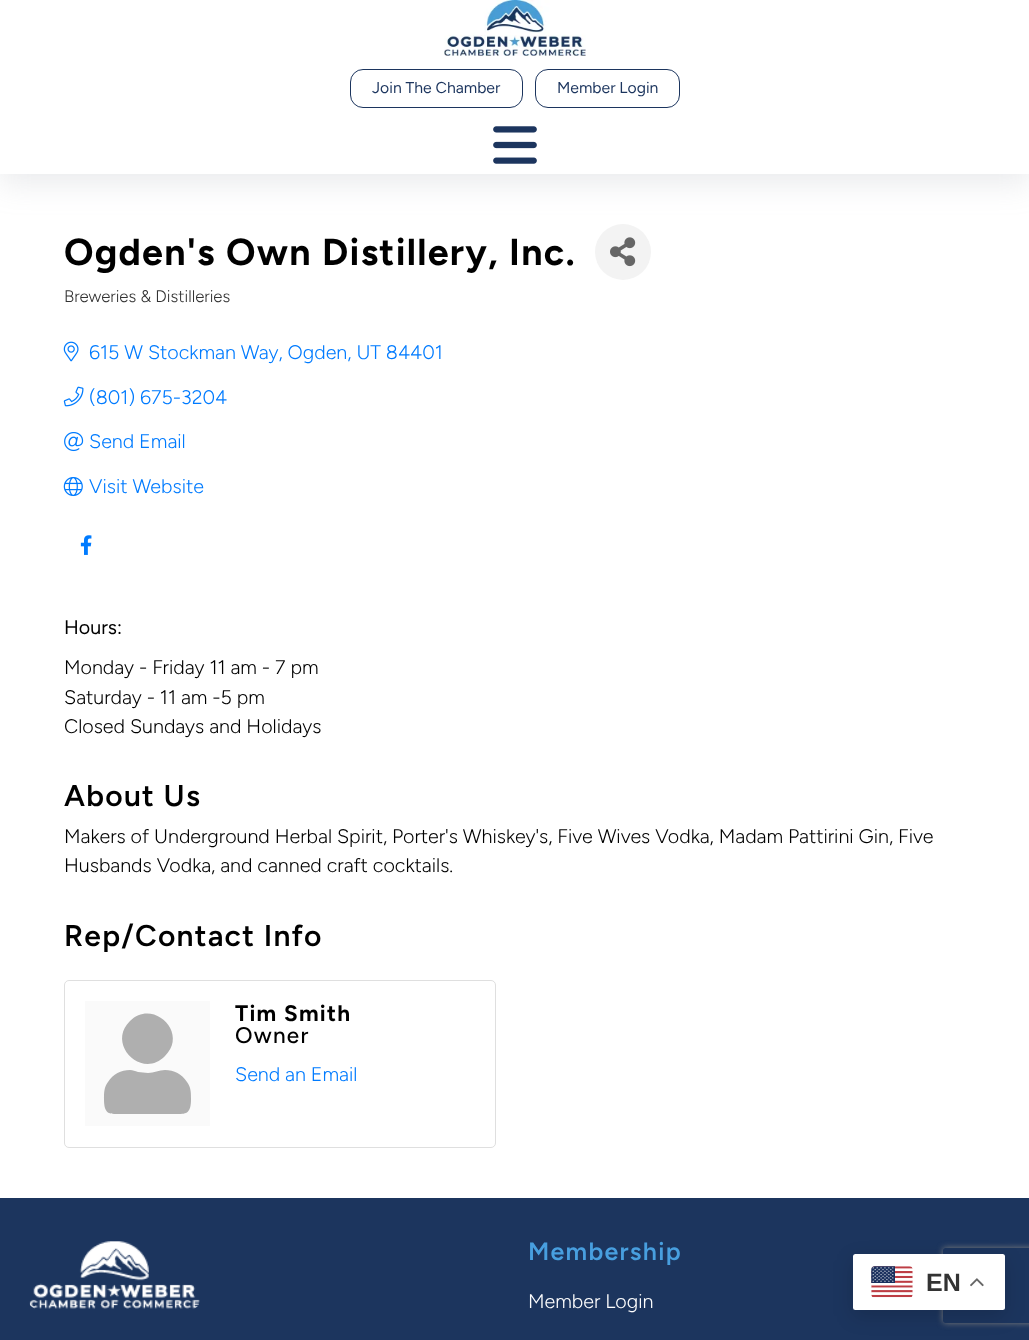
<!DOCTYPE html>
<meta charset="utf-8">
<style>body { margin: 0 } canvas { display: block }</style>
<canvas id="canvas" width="1029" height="1340"></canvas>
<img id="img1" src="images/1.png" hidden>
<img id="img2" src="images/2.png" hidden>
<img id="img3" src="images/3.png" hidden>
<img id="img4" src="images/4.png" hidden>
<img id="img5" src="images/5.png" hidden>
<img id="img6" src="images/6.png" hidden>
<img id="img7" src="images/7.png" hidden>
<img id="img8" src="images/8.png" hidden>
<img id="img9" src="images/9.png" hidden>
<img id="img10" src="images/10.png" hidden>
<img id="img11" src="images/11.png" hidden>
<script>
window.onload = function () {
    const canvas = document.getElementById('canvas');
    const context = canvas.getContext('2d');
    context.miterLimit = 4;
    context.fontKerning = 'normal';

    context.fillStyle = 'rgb(255, 255, 255)';
    context.fillRect(0, 0, 1029, 1340);
    context.fillStyle = 'rgb(243, 243, 243)';
    context.beginPath();
    context.arc(623, 252, 28, 0, 2 * Math.PI);
    context.fill();
    context.fillStyle = 'rgba(149, 157, 165, 0.2)';
    context.filter = 'blur(15px)';
    context.beginPath();
    context.rect(0, 10, 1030, 174);
    context.fill();
    context.filter = 'none';
    context.fillStyle = 'rgb(255, 255, 255)';
    context.fillRect(0, 0, 1029, 174);
    context.drawImage(document.getElementById('img1'), 444, 0, 142, 56);
    context.beginPath();
    context.roundRect(350.5, 69.5, 172, 38, 12.5);
    context.strokeStyle = 'rgb(28, 53, 94)';
    context.stroke();
    context.beginPath();
    context.roundRect(535.5, 69.5, 144, 38, 12.5);
    context.stroke();
    context.drawImage(document.getElementById('img2'), 493, 126, 44, 38);
    context.drawImage(document.getElementById('img3'), 610, 237, 26, 30);
    context.drawImage(document.getElementById('img4'), 63, 341, 16, 21);
    context.drawImage(document.getElementById('img5'), 63, 386, 21, 21);
    context.drawImage(document.getElementById('img6'), 64, 432, 20, 20);
    context.drawImage(document.getElementById('img7'), 63, 477, 20, 20);
    context.drawImage(document.getElementById('img8'), 80, 535, 12, 20);
    context.beginPath();
    context.roundRect(64.5, 980.5, 431, 167, 4.5);
    context.strokeStyle = 'rgb(223, 223, 223)';
    context.stroke();
    context.fillStyle = 'rgb(250, 250, 250)';
    context.fillRect(85, 1001, 125, 125);
    context.fillStyle = 'rgb(175, 175, 175)';
    context.beginPath();
    context.moveTo(165, 1056);
    context.bezierCurveTo(142, 1080, 106, 1044, 130, 1021);
    context.bezierCurveTo(153, 998, 189, 1033, 165, 1056);
    context.closePath();
    context.moveTo(165, 1070);
    context.bezierCurveTo(174, 1070, 182, 1074, 187, 1082);
    context.bezierCurveTo(191, 1087, 191, 1093, 191, 1099);
    context.bezierCurveTo(191, 1116, 185, 1114, 170, 1114);
    context.lineTo(125, 1114);
    context.bezierCurveTo(110, 1114, 104, 1116, 104, 1099);
    context.bezierCurveTo(104, 1093, 104, 1087, 108, 1082);
    context.bezierCurveTo(113, 1074, 121, 1070, 130, 1070);
    context.bezierCurveTo(133, 1070, 135, 1071, 138, 1072);
    context.lineTo(148, 1073);
    context.bezierCurveTo(154, 1073, 159, 1070, 165, 1070);
    context.closePath();
    context.fill();
    context.fillStyle = 'rgb(28, 53, 94)';
    context.fillRect(0, 1198, 1029, 142);
    context.drawImage(document.getElementById('img9'), 29, 1241, 171, 68);
    context.save();
    context.beginPath();
    context.moveTo(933, 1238);
    context.lineTo(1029, 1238);
    context.lineTo(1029, 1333);
    context.lineTo(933, 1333);
    context.closePath();
    context.moveTo(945.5, 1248);
    context.lineTo(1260.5, 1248);
    context.bezierCurveTo(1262, 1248, 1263, 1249, 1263, 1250.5);
    context.lineTo(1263, 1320.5);
    context.bezierCurveTo(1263, 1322, 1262, 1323, 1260.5, 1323);
    context.lineTo(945.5, 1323);
    context.bezierCurveTo(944, 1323, 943, 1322, 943, 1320.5);
    context.lineTo(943, 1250.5);
    context.bezierCurveTo(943, 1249, 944, 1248, 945.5, 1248);
    context.closePath();
    context.clip('evenodd');
    context.fillStyle = 'rgb(128, 128, 128)';
    context.filter = 'blur(3px)';
    context.beginPath();
    context.roundRect(943, 1248, 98, 75, 2.5);
    context.fill();
    context.filter = 'none';
    context.restore();
    context.fillStyle = 'rgba(0, 0, 0, 0.15)';
    context.filter = 'blur(9.5px)';
    context.beginPath();
    context.roundRect(853, 1260, 152, 56, 2.5);
    context.fill();
    context.filter = 'none';
    context.fillStyle = 'rgb(255, 255, 255)';
    context.beginPath();
    context.roundRect(853, 1254, 152, 56, 2.5);
    context.fill();
    context.drawImage(document.getElementById('img10'), 871, 1266, 42, 32);
    context.drawImage(document.getElementById('img11'), 970, 1278, 14, 9);
    context.font = '15.75px Figtree';
    context.fillStyle = 'rgb(28, 53, 94)';
    context.fillText('Join The Chamber', 372, 93);
    context.fillText('Member Login', 557, 93);
    context.letterSpacing = '1.25px';
    context.font = 'bold 37.5px Figtree';
    context.fillStyle = 'rgb(0, 0, 0)';
    context.fillText('Ogden\'s Own Distillery, Inc.', 64, 265);
    context.letterSpacing = '0px';
    context.font = '300 16.75px Figtree';
    context.fillStyle = 'rgb(51, 51, 51)';
    context.fillText('Breweries & Distilleries', 64, 302);
    context.font = '300 19.7px Figtree';
    context.fillStyle = 'rgb(0, 123, 255)';
    context.fillText('615 W Stockman Way, Ogden, UT 84401', 89, 359);
    context.fillText('(801) 675-3204', 89, 404);
    context.fillText('Send Email', 89, 448);
    context.fillText('Visit Website', 89, 493);
    context.font = '19.7px Figtree';
    context.fillStyle = 'rgb(0, 0, 0)';
    context.fillText('Hours:', 64, 634);
    context.font = '300 19.7px Figtree';
    context.fillText('Monday - Friday 11 am - 7 pm', 64, 674);
    context.fillText('Saturday - 11 am -5 pm', 64, 704);
    context.fillText('Closed Sundays and Holidays', 64, 733);
    context.letterSpacing = '1.25px';
    context.font = '600 30px Figtree';
    context.fillText('About Us', 64, 806);
    context.letterSpacing = '0px';
    context.font = '300 19.7px Figtree';
    context.fillText('Makers of Underground Herbal Spirit, Porter\'s Whiskey\'s, Five Wives Vodka, Madam Pattirini Gin, Five', 64, 843);
    context.fillText('Husbands Vodka, and canned craft cocktails.', 64, 872);
    context.letterSpacing = '1.25px';
    context.font = '600 30px Figtree';
    context.fillText('Rep/Contact Info', 64, 946);
    context.font = 'bold 22.5px Figtree';
    context.fillText('Tim Smith', 235, 1021);
    context.font = '500 22.5px Figtree';
    context.fillText('Owner', 235, 1043);
    context.letterSpacing = '0px';
    context.font = '300 19.7px Figtree';
    context.fillStyle = 'rgb(0, 123, 255)';
    context.fillText('Send an Email', 235, 1081);
    context.letterSpacing = '1.25px';
    context.font = '600 25px Figtree';
    context.fillStyle = 'rgb(72, 159, 223)';
    context.fillText('Membership', 528, 1260);
    context.letterSpacing = '0px';
    context.font = '300 19.7px Figtree';
    context.fillStyle = 'rgb(255, 255, 255)';
    context.fillText('Member Login', 528, 1308);
    context.font = 'bold 25px Liberation Sans';
    context.fillStyle = 'rgb(51, 51, 51)';
    context.fillText('EN', 926, 1291);
};
</script>
